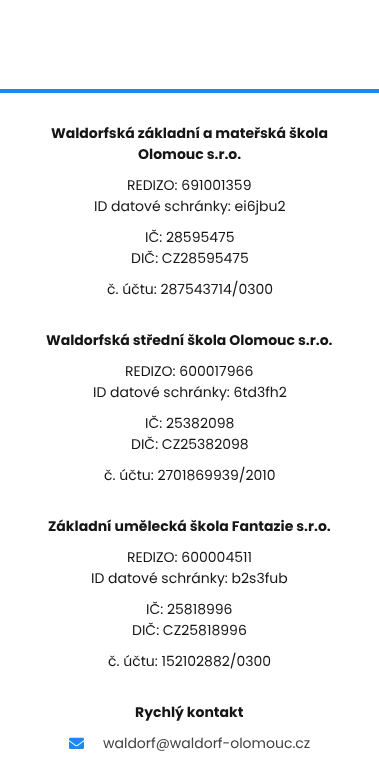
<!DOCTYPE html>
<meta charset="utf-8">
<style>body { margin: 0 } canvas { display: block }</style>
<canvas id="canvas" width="379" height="760"></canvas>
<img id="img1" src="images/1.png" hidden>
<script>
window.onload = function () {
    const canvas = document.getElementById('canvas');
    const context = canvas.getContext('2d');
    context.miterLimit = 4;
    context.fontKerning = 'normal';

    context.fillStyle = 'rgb(255, 255, 255)';
    context.fillRect(0, 0, 379, 760);
    context.fillStyle = 'rgb(30, 135, 240)';
    context.fillRect(0, 89, 379, 4);
    context.drawImage(document.getElementById('img1'), 69, 737, 15, 12);
    context.font = 'bold 14px Poppins';
    context.fillStyle = 'rgb(22, 22, 23)';
    context.fillText('Waldorfská základní a mateřská škola', 51, 138);
    context.fillText('Olomouc s.r.o.', 138, 159);
    context.font = '14px Poppins';
    context.fillText('REDIZO: 691001359', 127, 190);
    context.fillText('ID datové schránky: ei6jbu2', 94, 211);
    context.fillText('IČ: 28595475', 145, 242);
    context.fillText('DIČ: CZ28595475', 131, 263);
    context.fillText('č. účtu: 287543714/0300', 107, 294);
    context.font = 'bold 14px Poppins';
    context.fillText('Waldorfská střední škola Olomouc s.r.o.', 46, 345);
    context.font = '14px Poppins';
    context.fillText('REDIZO: 600017966', 125, 376);
    context.fillText('ID datové schránky: 6td3fh2', 93, 397);
    context.fillText('IČ: 25382098', 145, 428);
    context.fillText('DIČ: CZ25382098', 131, 449);
    context.fillText('č. účtu: 2701869939/2010', 104, 480);
    context.font = 'bold 14px Poppins';
    context.fillText('Základní umělecká škola Fantazie s.r.o.', 48, 531);
    context.font = '14px Poppins';
    context.fillText('REDIZO: 600004511', 127, 562);
    context.fillText('ID datové schránky: b2s3fub', 91, 583);
    context.fillText('IČ: 25818996', 146, 614);
    context.fillText('DIČ: CZ25818996', 132, 635);
    context.fillText('č. účtu: 152102882/0300', 108, 666);
    context.font = 'bold 14px Poppins';
    context.fillText('Rychlý kontakt', 135, 717);
    context.font = '14px Poppins';
    context.fillStyle = 'rgb(66, 66, 66)';
    context.fillText('waldorf@waldorf-olomouc.cz', 103, 748);
};
</script>
